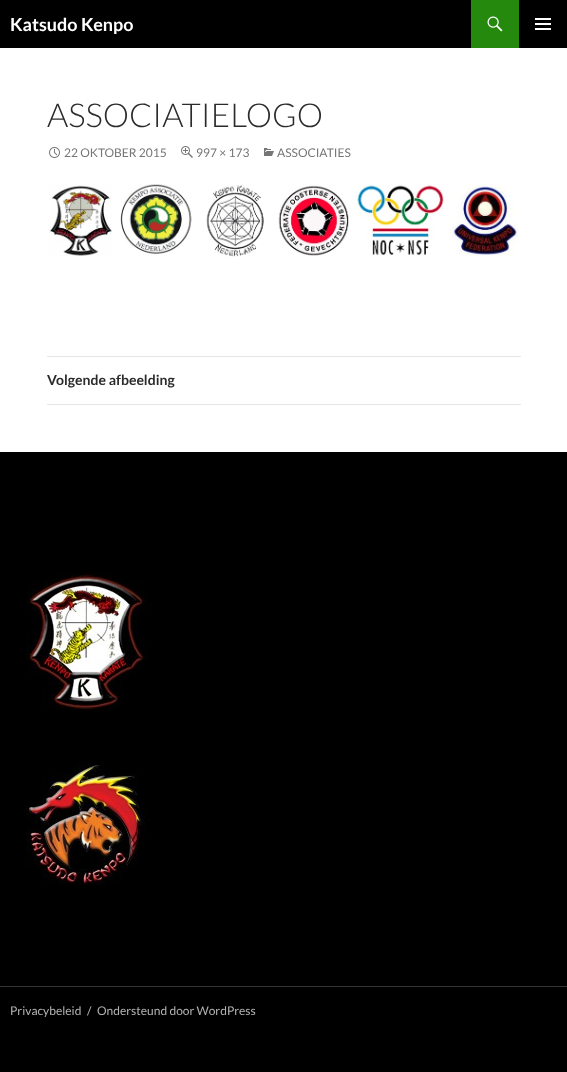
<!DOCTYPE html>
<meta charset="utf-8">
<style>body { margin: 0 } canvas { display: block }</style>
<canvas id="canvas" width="567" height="1072"></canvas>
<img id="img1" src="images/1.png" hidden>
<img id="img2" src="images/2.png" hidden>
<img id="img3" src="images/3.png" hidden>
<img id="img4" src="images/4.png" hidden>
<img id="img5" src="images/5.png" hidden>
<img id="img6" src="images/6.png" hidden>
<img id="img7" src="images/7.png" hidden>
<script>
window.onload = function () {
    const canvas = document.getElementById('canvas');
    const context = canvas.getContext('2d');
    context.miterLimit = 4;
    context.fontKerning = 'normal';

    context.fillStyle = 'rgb(0, 0, 0)';
    context.fillRect(0, 0, 567, 1072);
    context.fillStyle = 'rgb(255, 255, 255)';
    context.fillRect(0, 48, 567, 404);
    context.fillStyle = 'rgb(36, 137, 13)';
    context.fillRect(471, 0, 48, 48);
    context.drawImage(document.getElementById('img1'), 487, 16, 16, 16);
    context.drawImage(document.getElementById('img2'), 535, 18, 16, 12);
    context.drawImage(document.getElementById('img3'), 49, 147, 11, 11);
    context.drawImage(document.getElementById('img4'), 181, 146, 12, 12);
    context.drawImage(document.getElementById('img5'), 264, 148, 10, 8);
    context.drawImage(document.getElementById('img6'), 49, 184, 470, 73);
    context.fillStyle = 'rgb(230, 230, 230)';
    context.fillRect(47, 356, 474, 1);
    context.fillRect(47, 404, 474, 1);
    context.fillStyle = 'rgb(51, 51, 51)';
    context.fillRect(0, 986, 567, 1);
    context.drawImage(document.getElementById('img7'), 26, 573, 124, 312);
    context.font = 'bold 18px Lato';
    context.fillStyle = 'rgb(255, 255, 255)';
    context.fillText('Katsudo Kenpo', 10, 31);
    context.font = '300 33px Lato';
    context.fillStyle = 'rgb(43, 43, 43)';
    context.fillText('ASSOCIATIELOGO', 47, 127);
    context.font = '12px Lato';
    context.fillStyle = 'rgb(118, 118, 118)';
    context.fillText('22 OKTOBER 2015', 64, 157);
    context.fillText('997 × 173', 196, 157);
    context.fillText('ASSOCIATIES', 277, 157);
    context.font = 'bold 14px Lato';
    context.fillStyle = 'rgb(43, 43, 43)';
    context.fillText('Volgende afbeelding', 47, 385);
    context.font = '12px Lato';
    context.fillStyle = 'rgb(179, 179, 179)';
    context.fillText('Privacybeleid', 10, 1015);
    context.fillText('/', 87, 1015);
    context.fillText('Ondersteund door WordPress', 97, 1015);
};
</script>
